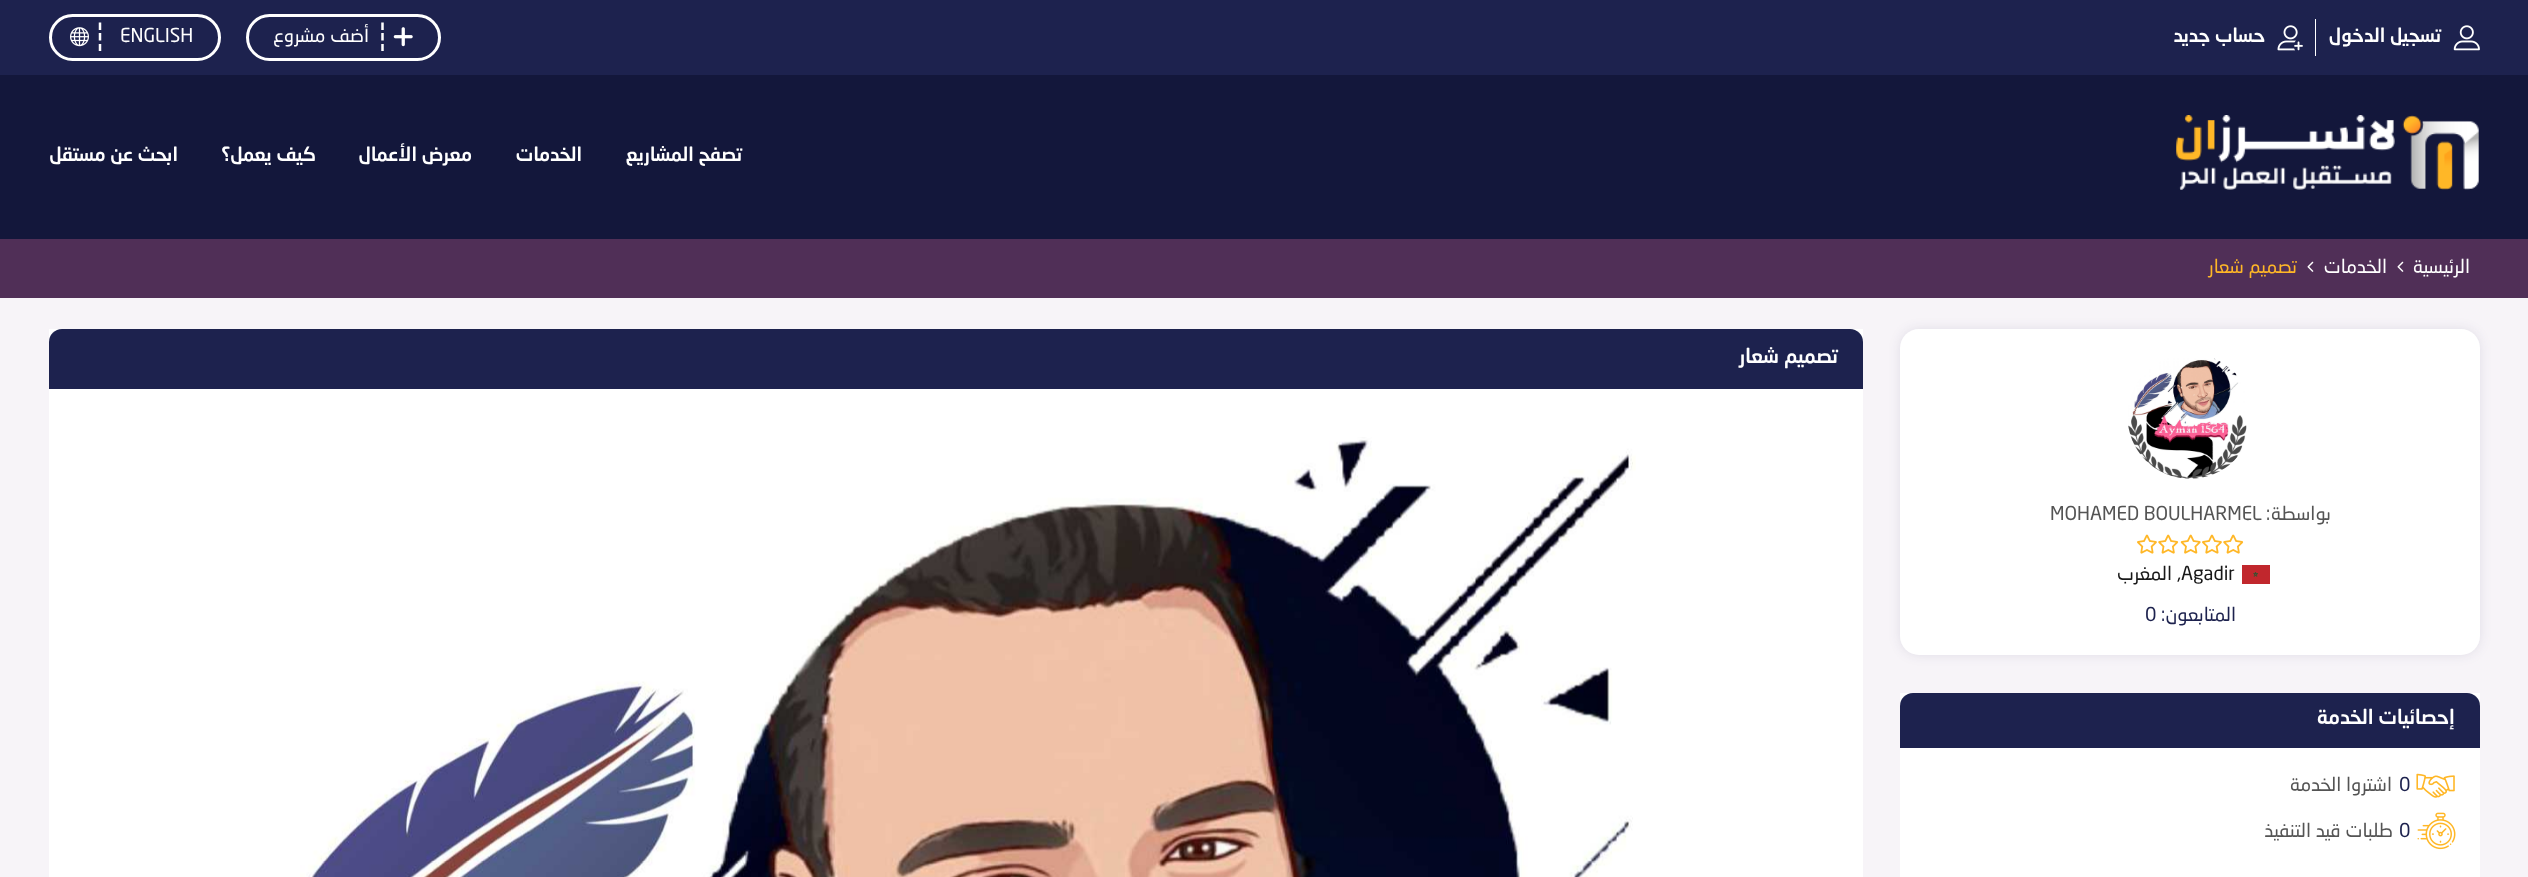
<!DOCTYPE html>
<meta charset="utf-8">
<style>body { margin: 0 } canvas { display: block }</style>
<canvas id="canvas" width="2528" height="877"></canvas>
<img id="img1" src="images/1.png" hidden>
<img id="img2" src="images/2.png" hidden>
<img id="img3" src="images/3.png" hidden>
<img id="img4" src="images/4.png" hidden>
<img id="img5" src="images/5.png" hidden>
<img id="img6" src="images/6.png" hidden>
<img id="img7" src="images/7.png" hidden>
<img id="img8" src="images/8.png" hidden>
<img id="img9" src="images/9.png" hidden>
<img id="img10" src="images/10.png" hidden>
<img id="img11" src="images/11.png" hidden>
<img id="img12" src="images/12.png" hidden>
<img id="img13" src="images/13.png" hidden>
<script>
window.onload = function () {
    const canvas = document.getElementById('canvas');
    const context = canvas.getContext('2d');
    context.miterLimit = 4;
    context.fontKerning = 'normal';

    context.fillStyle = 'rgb(247, 244, 248)';
    context.fillRect(0, 0, 2528, 877);
    context.fillStyle = 'rgb(19, 23, 59)';
    context.fillRect(0, 75, 2528, 164);
    context.fillStyle = 'rgb(29, 34, 78)';
    context.fillRect(0, 0, 2528, 75);
    context.drawImage(document.getElementById('img1'), 2453, 25, 27, 26);
    context.fillStyle = 'rgb(255, 255, 255)';
    context.fillRect(2315, 19, 1, 37);
    context.drawImage(document.getElementById('img2'), 2277, 25, 26, 26);
    context.beginPath();
    context.roundRect(247.5, 15.5, 192, 44, 22);
    context.strokeStyle = 'rgb(255, 255, 255)';
    context.lineWidth = 3;
    context.stroke();
    context.drawImage(document.getElementById('img3'), 393, 27, 20, 20);
    context.beginPath();
    context.moveTo(382.5, 22.5);
    context.lineTo(382.5, 30);
    context.moveTo(382.5, 33);
    context.lineTo(382.5, 40.5);
    context.moveTo(382.5, 44);
    context.lineTo(382.5, 51);
    context.lineWidth = 2.5;
    context.stroke();
    context.beginPath();
    context.roundRect(50.5, 15.5, 169, 44, 22);
    context.lineWidth = 3;
    context.stroke();
    context.beginPath();
    context.moveTo(100, 22.5);
    context.lineTo(100, 30);
    context.moveTo(100, 33);
    context.lineTo(100, 40.5);
    context.moveTo(100, 44);
    context.lineTo(100, 51);
    context.lineWidth = 2.5;
    context.stroke();
    context.drawImage(document.getElementById('img4'), 70, 27, 19, 20);
    context.drawImage(document.getElementById('img5'), 2176, 115, 303, 75);
    context.fillStyle = 'rgb(80, 47, 87)';
    context.fillRect(0, 239, 2528, 59);
    context.drawImage(document.getElementById('img6'), 2397, 261, 7, 11);
    context.drawImage(document.getElementById('img6'), 2307, 261, 7, 11);
    context.fillStyle = 'rgb(255, 255, 255)';
    context.fillRect(49, 329, 1814, 548);
    context.fillStyle = 'rgb(29, 34, 78)';
    context.beginPath();
    context.roundRect(49, 329, 1814, 60, [13, 13, 0, 0]);
    context.fill();
    context.drawImage(document.getElementById('img7'), 300, 437, 1336, 440);
    context.fillStyle = 'rgba(29, 34, 78, 0.1)';
    context.filter = 'blur(6px)';
    context.beginPath();
    context.roundRect(1900, 329, 580, 326, 19);
    context.fill();
    context.filter = 'none';
    context.fillStyle = 'rgb(255, 255, 255)';
    context.beginPath();
    context.roundRect(1900, 329, 580, 326, 19);
    context.fill();
    context.drawImage(document.getElementById('img8'), 2128, 358, 119, 121);
    context.drawImage(document.getElementById('img9'), 2223, 534, 21, 20);
    context.drawImage(document.getElementById('img10'), 2202, 534, 20, 20);
    context.drawImage(document.getElementById('img11'), 2180, 534, 21, 20);
    context.drawImage(document.getElementById('img9'), 2158, 534, 21, 20);
    context.drawImage(document.getElementById('img10'), 2137, 534, 20, 20);
    context.fillStyle = 'rgb(193, 39, 45)';
    context.fillRect(2242, 565, 28, 19);
    context.beginPath();
    context.moveTo(2255.5, 572);
    context.lineTo(2257, 576.5);
    context.lineTo(2253.5, 573.5);
    context.lineTo(2258, 573.5);
    context.lineTo(2254, 576.5);
    context.closePath();
    context.strokeStyle = 'rgb(0, 98, 51)';
    context.lineWidth = 0.5;
    context.stroke();
    context.fillStyle = 'rgb(255, 255, 255)';
    context.fillRect(1900, 693, 580, 184);
    context.fillStyle = 'rgb(29, 34, 78)';
    context.beginPath();
    context.roundRect(1900, 693, 580, 55, [13, 13, 0, 0]);
    context.fill();
    context.drawImage(document.getElementById('img12'), 2416, 773, 39, 25);
    context.drawImage(document.getElementById('img13'), 2417, 812, 39, 38);
    context.direction = 'rtl';
    context.font = '500 19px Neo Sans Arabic';
    context.fillStyle = 'rgb(255, 255, 255)';
    context.fillText('تسجيل الدخول', 2441, 42);
    context.fillText('حساب جديد', 2265, 42);
    context.font = '19px Neo Sans Arabic';
    context.fillText('أضف مشروع', 369, 42);
    context.direction = 'ltr';
    context.fillText('ENGLISH', 120, 42);
    context.direction = 'rtl';
    context.font = '500 19px Neo Sans Arabic';
    context.fillText('تصفح المشاريع', 742, 161);
    context.fillText('الخدمات', 582, 161);
    context.fillText('معرض الأعمال', 472, 161);
    context.fillText('كيف يعمل؟', 316, 161);
    context.fillText('ابحث عن مستقل', 178, 161);
    context.font = '19px Neo Sans Arabic';
    context.fillText('الرئيسية', 2470, 273);
    context.fillText('الخدمات', 2387, 273);
    context.fillStyle = 'rgb(255, 183, 39)';
    context.fillText('تصميم شعار', 2297, 273);
    context.font = '500 20px Neo Sans Arabic';
    context.fillStyle = 'rgb(255, 255, 255)';
    context.fillText('تصميم شعار', 1838, 363);
    context.font = '19px Neo Sans Arabic';
    context.fillStyle = 'rgb(84, 84, 84)';
    context.fillText('بواسطة', 2331, 520);
    context.direction = 'ltr';
    context.fillText(':', 2266, 520);
    context.fillText('MOHAMED BOULHARMEL', 2050, 520);
    context.fillStyle = 'rgb(24, 24, 24)';
    context.fillText(',Agadir', 2177, 580);
    context.direction = 'rtl';
    context.fillText('المغرب', 2172, 580);
    context.fillStyle = 'rgb(29, 34, 78)';
    context.fillText('المتابعون', 2236, 621);
    context.direction = 'ltr';
    context.fillText(':', 2161, 621);
    context.fillText('0', 2145, 621);
    context.direction = 'rtl';
    context.font = '500 20px Neo Sans Arabic';
    context.fillStyle = 'rgb(255, 255, 255)';
    context.fillText('إحصائيات الخدمة', 2455, 724);
    context.direction = 'ltr';
    context.font = '19px Neo Sans Arabic';
    context.fillStyle = 'rgb(29, 34, 78)';
    context.fillText('0', 2399, 791);
    context.direction = 'rtl';
    context.fillStyle = 'rgb(84, 84, 84)';
    context.fillText('اشتروا الخدمة', 2392, 791);
    context.direction = 'ltr';
    context.fillStyle = 'rgb(29, 34, 78)';
    context.fillText('0', 2399, 837);
    context.direction = 'rtl';
    context.fillStyle = 'rgb(84, 84, 84)';
    context.fillText('طلبات قيد التنفيذ', 2393, 837);
};
</script>
